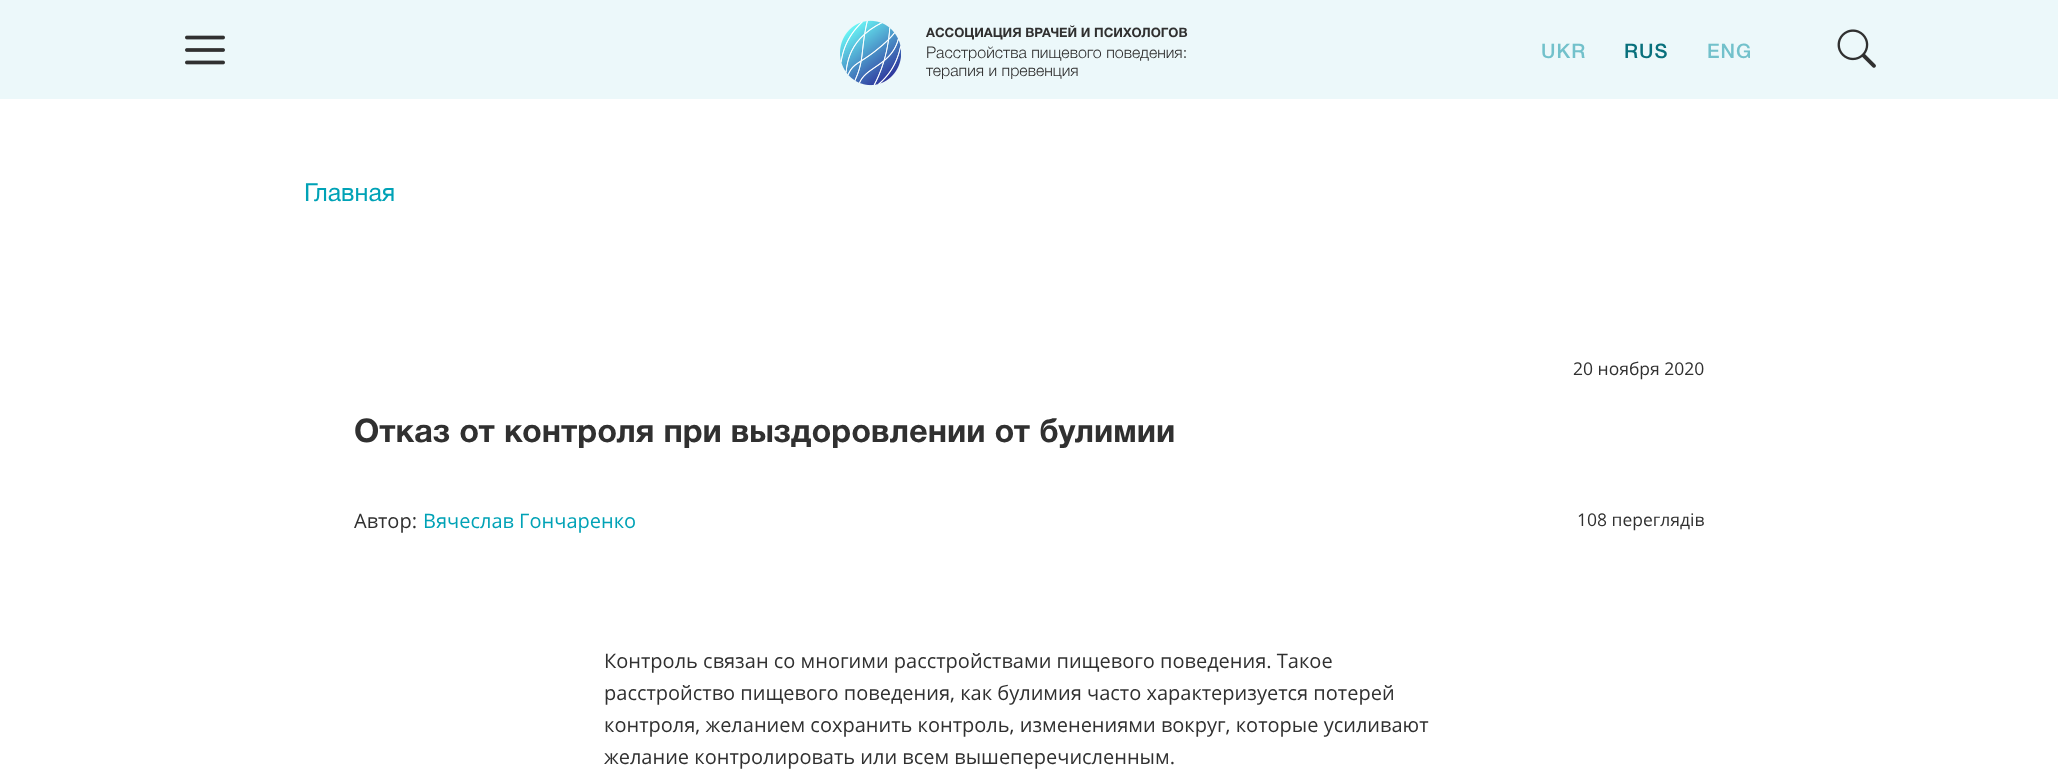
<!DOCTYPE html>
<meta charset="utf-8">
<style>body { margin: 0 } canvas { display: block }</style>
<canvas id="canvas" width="2058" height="777"></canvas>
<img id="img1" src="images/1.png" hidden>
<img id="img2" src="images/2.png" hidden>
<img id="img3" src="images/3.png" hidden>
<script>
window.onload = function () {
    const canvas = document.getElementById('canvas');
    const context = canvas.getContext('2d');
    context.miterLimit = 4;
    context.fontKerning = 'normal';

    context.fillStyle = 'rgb(255, 255, 255)';
    context.fillRect(0, 0, 2058, 777);
    context.fillStyle = 'rgb(236, 248, 250)';
    context.fillRect(0, 0, 2058, 99);
    context.drawImage(document.getElementById('img1'), 185, 35, 40, 30);
    context.drawImage(document.getElementById('img2'), 840, 20, 61, 66);
    context.drawImage(document.getElementById('img3'), 1837, 29, 39, 39);
    context.font = 'bold 13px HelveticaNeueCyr';
    context.fillStyle = 'rgb(48, 48, 48)';
    context.fillText('АССОЦИАЦИЯ ВРАЧЕЙ И ПСИХОЛОГОВ', 926, 37);
    context.font = '300 16px HelveticaNeueCyr';
    context.fillText('Расстройства пищевого поведения:', 926, 58);
    context.fillText('терапия и превенция', 926, 76);
    context.letterSpacing = '1px';
    context.font = '500 20px HelveticaNeueCyr';
    context.fillStyle = 'rgb(114, 193, 203)';
    context.fillText('UKR', 1541, 58);
    context.fillStyle = 'rgb(8, 112, 124)';
    context.fillText('RUS', 1624, 58);
    context.fillStyle = 'rgb(114, 193, 203)';
    context.fillText('ENG', 1707, 58);
    context.letterSpacing = '0px';
    context.font = '25px HelveticaNeueCyr';
    context.fillStyle = 'rgb(0, 162, 182)';
    context.fillText('Главная', 304, 201);
    context.font = '17.5px Open Sans';
    context.fillStyle = 'rgb(48, 48, 48)';
    context.fillText('20 ноября 2020', 1573, 375);
    context.font = 'bold 32.5px HelveticaNeueCyr';
    context.fillText('Отказ от контроля при выздоровлении от булимии', 354, 442);
    context.font = '20px Open Sans';
    context.fillText('Автор:', 354, 528);
    context.fillStyle = 'rgb(0, 162, 182)';
    context.fillText('Вячеслав Гончаренко', 423, 528);
    context.font = '17.5px Open Sans';
    context.fillStyle = 'rgb(48, 48, 48)';
    context.fillText('108 переглядів', 1577, 526);
    context.font = '20px Open Sans';
    context.fillText('Контроль связан со многими расстройствами пищевого поведения. Такое', 604, 668);
    context.fillText('расстройство пищевого поведения, как булимия часто характеризуется потерей', 604, 700);
    context.fillText('контроля, желанием сохранить контроль, изменениями вокруг, которые усиливают', 604, 732);
    context.fillText('желание контролировать или всем вышеперечисленным.', 604, 764);
};
</script>
